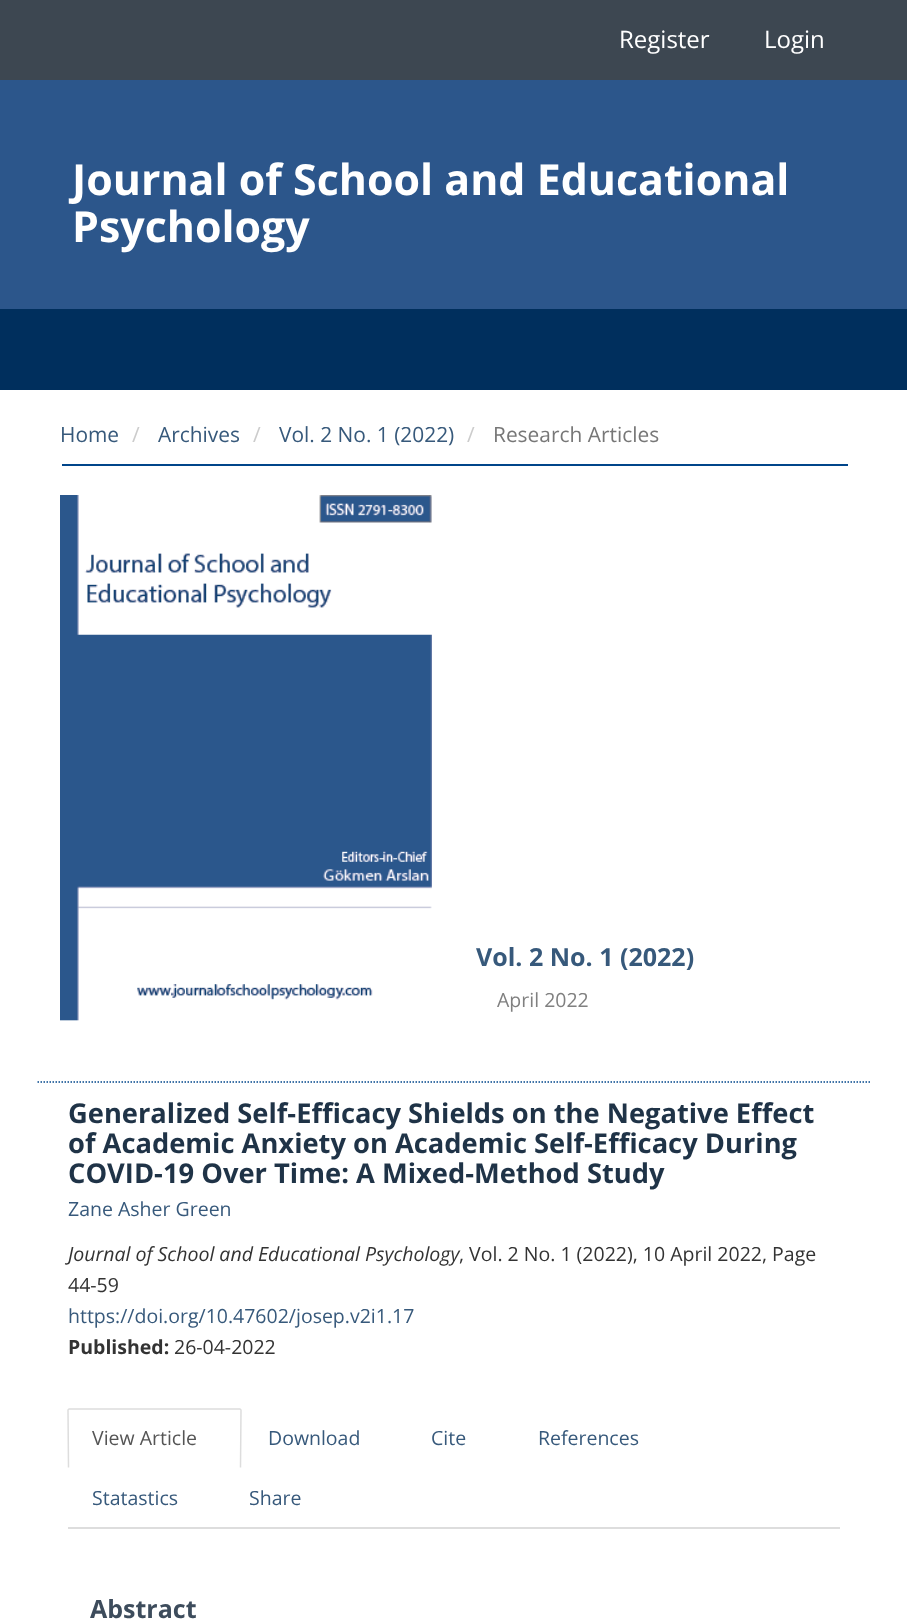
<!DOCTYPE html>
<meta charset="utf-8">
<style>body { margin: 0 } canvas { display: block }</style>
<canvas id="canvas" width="907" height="1623"></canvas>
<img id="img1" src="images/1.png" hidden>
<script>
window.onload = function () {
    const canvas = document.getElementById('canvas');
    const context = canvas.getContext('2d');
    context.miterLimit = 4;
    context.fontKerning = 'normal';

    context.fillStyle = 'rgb(255, 255, 255)';
    context.fillRect(0, 0, 907, 1623);
    context.fillStyle = 'rgb(61, 71, 81)';
    context.fillRect(0, 0, 907, 80);
    context.fillStyle = 'rgb(44, 86, 139)';
    context.fillRect(0, 80, 907, 229);
    context.fillStyle = 'rgb(0, 47, 93)';
    context.fillRect(0, 309, 907, 81);
    context.fillStyle = 'rgb(0, 69, 138)';
    context.fillRect(62, 464, 786, 2);
    context.beginPath();
    context.moveTo(37.5, 1082);
    context.lineTo(870, 1082);
    context.strokeStyle = 'rgb(0, 69, 138)';
    context.lineWidth = 1.5;
    context.setLineDash([1.5, 1.5]);
    context.stroke();
    context.drawImage(document.getElementById('img1'), 60, 495, 372, 526);
    context.fillStyle = 'rgb(221, 221, 221)';
    context.fillRect(68, 1527, 772, 2);
    context.beginPath();
    context.moveTo(68.5, 1467.5);
    context.lineTo(68, 1410);
    context.lineTo(69, 1409);
    context.lineTo(240, 1409);
    context.lineTo(241, 1410);
    context.lineTo(240.5, 1467.5);
    context.strokeStyle = 'rgb(221, 221, 221)';
    context.setLineDash([]);
    context.stroke();
    context.font = '24px Open Sans';
    context.fillStyle = 'rgb(255, 255, 255)';
    context.fillText('Register', 619, 48);
    context.fillText('Login', 764, 48);
    context.font = 'bold 42.9px Open Sans';
    context.fillText('Journal of School and Educational', 72, 195);
    context.fillText('Psychology', 72, 242);
    context.font = '20.9px Open Sans';
    context.fillStyle = 'rgb(55, 89, 123)';
    context.fillText('Home', 60, 442);
    context.fillStyle = 'rgb(204, 204, 204)';
    context.fillText('/', 132, 442);
    context.fillStyle = 'rgb(55, 89, 123)';
    context.fillText('Archives', 158, 442);
    context.fillStyle = 'rgb(204, 204, 204)';
    context.fillText('/', 253, 442);
    context.fillStyle = 'rgb(55, 89, 123)';
    context.fillText('Vol. 2 No. 1 (2022)', 279, 442);
    context.fillStyle = 'rgb(204, 204, 204)';
    context.fillText('/', 467, 442);
    context.fillStyle = 'rgb(119, 119, 119)';
    context.fillText('Research Articles', 493, 442);
    context.font = 'bold 25px Open Sans';
    context.fillStyle = 'rgb(55, 89, 123)';
    context.fillText('Vol. 2 No. 1 (2022)', 476, 966);
    context.font = '19.5px Open Sans';
    context.fillStyle = 'rgb(128, 128, 128)';
    context.fillText('April 2022', 497, 1007);
    context.font = 'bold 27.3px Open Sans';
    context.fillStyle = 'rgb(31, 51, 71)';
    context.fillText('Generalized Self-Efficacy Shields on the Negative Effect', 68, 1123);
    context.fillText('of Academic Anxiety on Academic Self-Efficacy During', 68, 1153);
    context.fillText('COVID-19 Over Time: A Mixed-Method Study', 68, 1183);
    context.font = '19.5px Open Sans';
    context.fillStyle = 'rgb(55, 89, 123)';
    context.fillText('Zane Asher Green', 68, 1216);
    context.font = 'italic 19.5px Open Sans';
    context.fillStyle = 'rgb(51, 51, 51)';
    context.fillText('Journal of School and Educational Psychology', 68, 1261);
    context.font = '19.5px Open Sans';
    context.fillText(', Vol. 2 No. 1 (2022), 10 April 2022', 459, 1261);
    context.fillText(', Page', 762, 1261);
    context.fillText('44-59', 68, 1292);
    context.fillStyle = 'rgb(55, 89, 123)';
    context.fillText('https://doi.org/10.47602/josep.v2i1.17', 68, 1323);
    context.font = 'bold 19.5px Open Sans';
    context.fillStyle = 'rgb(51, 51, 51)';
    context.fillText('Published:', 68, 1354);
    context.font = '19.5px Open Sans';
    context.fillText('26-04-2022', 174, 1354);
    context.fillStyle = 'rgb(85, 85, 85)';
    context.fillText('View Article', 92, 1445);
    context.fillStyle = 'rgb(55, 89, 123)';
    context.fillText('Download', 268, 1445);
    context.fillText('Cite', 431, 1445);
    context.fillText('References', 538, 1445);
    context.fillText('Statastics', 92, 1505);
    context.fillText('Share', 249, 1505);
    context.font = 'bold 25px Open Sans';
    context.fillStyle = 'rgb(61, 76, 92)';
    context.fillText('Abstract', 90, 1618);
};
</script>
